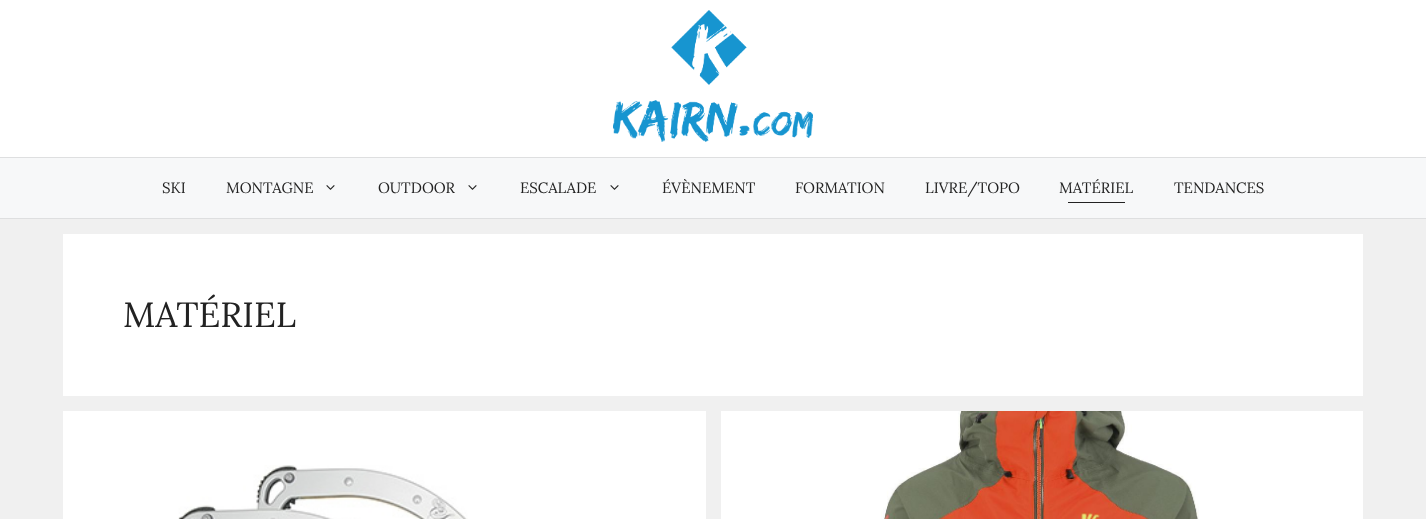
<!DOCTYPE html>
<meta charset="utf-8">
<style>body { margin: 0 } canvas { display: block }</style>
<canvas id="canvas" width="1426" height="519"></canvas>
<img id="img1" src="images/1.png" hidden>
<img id="img2" src="images/2.png" hidden>
<img id="img3" src="images/3.png" hidden>
<img id="img4" src="images/4.png" hidden>
<script>
window.onload = function () {
    const canvas = document.getElementById('canvas');
    const context = canvas.getContext('2d');
    context.miterLimit = 4;
    context.fontKerning = 'normal';

    context.fillStyle = 'rgb(240, 240, 240)';
    context.fillRect(0, 0, 1426, 519);
    context.fillStyle = 'rgb(255, 255, 255)';
    context.fillRect(0, 0, 1426, 157);
    context.drawImage(document.getElementById('img1'), 613, 10, 200, 132);
    context.fillStyle = 'rgb(247, 248, 249)';
    context.fillRect(0, 158, 1426, 60);
    context.fillStyle = 'rgb(222, 223, 224)';
    context.fillRect(0, 157, 1426, 1);
    context.fillRect(0, 218, 1426, 1);
    context.drawImage(document.getElementById('img2'), 326, 185, 9, 5);
    context.drawImage(document.getElementById('img2'), 468, 185, 9, 5);
    context.drawImage(document.getElementById('img2'), 610, 185, 9, 5);
    context.fillStyle = 'rgb(34, 34, 34)';
    context.fillRect(1068, 202, 57, 1);
    context.fillStyle = 'rgb(255, 255, 255)';
    context.fillRect(63, 234, 1300, 162);
    context.fillRect(63, 411, 643, 108);
    context.drawImage(document.getElementById('img3'), 178, 465, 290, 54);
    context.fillRect(721, 411, 642, 108);
    context.drawImage(document.getElementById('img4'), 881, 411, 318, 108);
    context.font = '15px Lora';
    context.fillStyle = 'rgb(34, 34, 34)';
    context.fillText('SKI', 162, 193);
    context.fillText('MONTAGNE', 226, 193);
    context.fillText('OUTDOOR', 378, 193);
    context.fillText('ESCALADE', 520, 193);
    context.fillText('ÉVÈNEMENT', 662, 193);
    context.fillText('FORMATION', 795, 193);
    context.fillText('LIVRE/TOPO', 925, 193);
    context.fillText('MATÉRIEL', 1059, 193);
    context.fillText('TENDANCES', 1174, 193);
    context.font = '35px Lora';
    context.fillText('MATÉRIEL', 123, 327);
};
</script>
